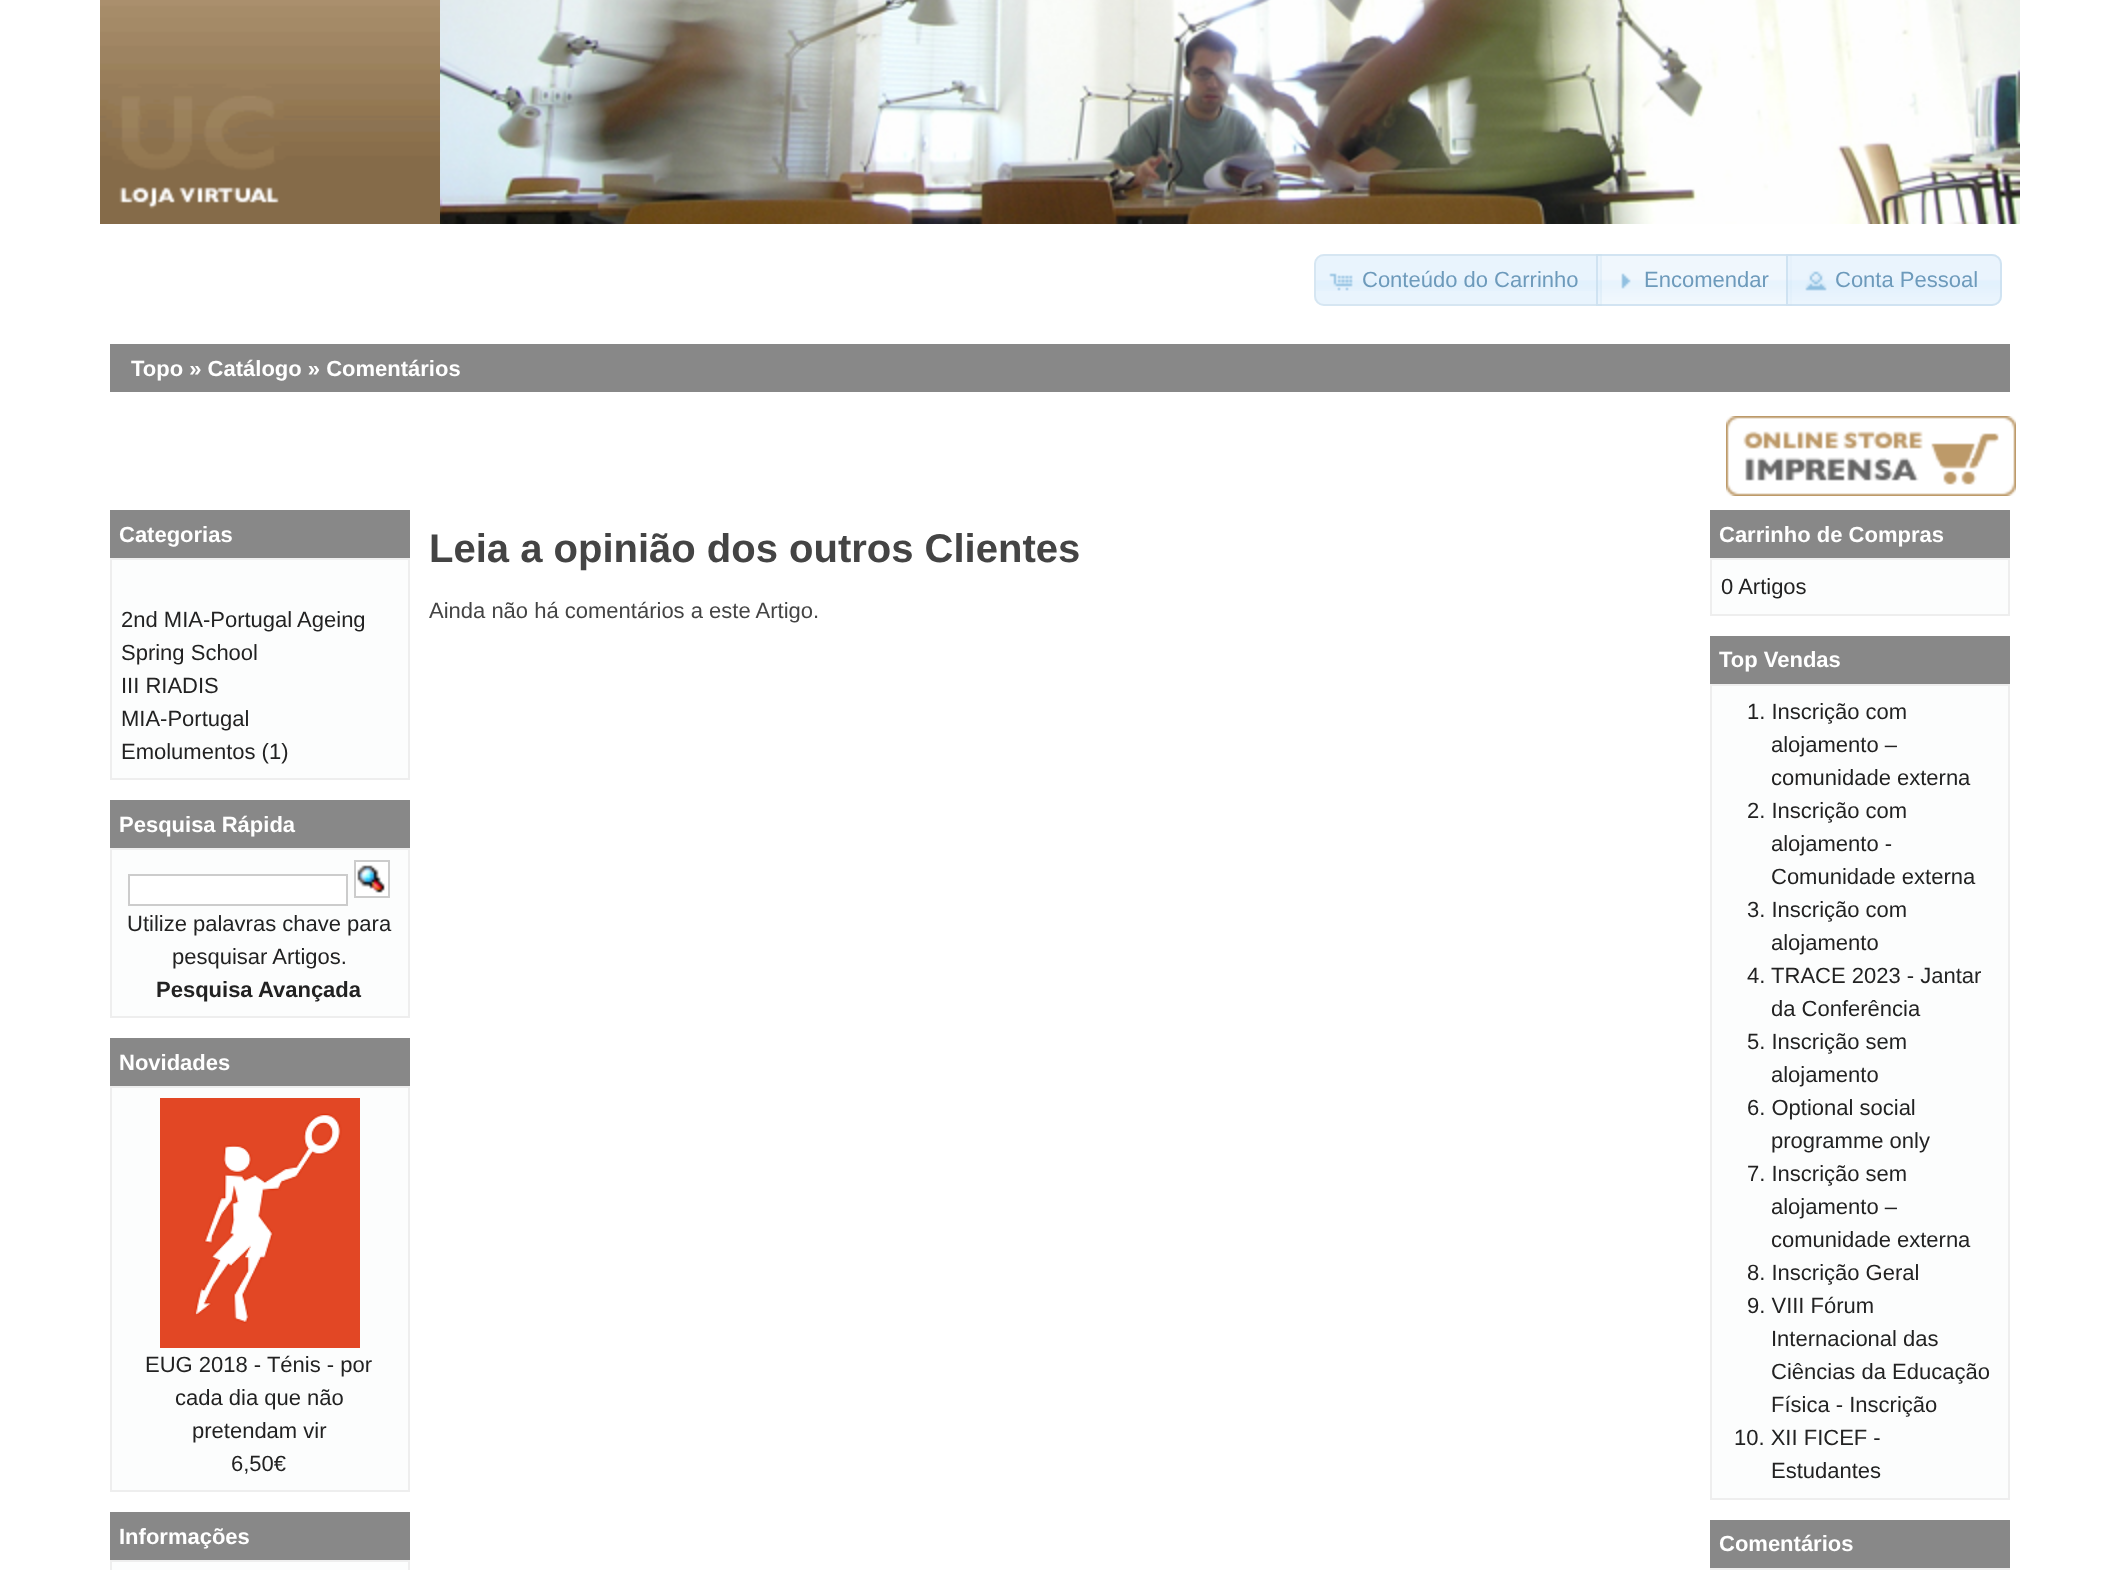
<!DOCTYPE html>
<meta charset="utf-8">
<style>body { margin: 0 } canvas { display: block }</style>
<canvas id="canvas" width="2117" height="1570"></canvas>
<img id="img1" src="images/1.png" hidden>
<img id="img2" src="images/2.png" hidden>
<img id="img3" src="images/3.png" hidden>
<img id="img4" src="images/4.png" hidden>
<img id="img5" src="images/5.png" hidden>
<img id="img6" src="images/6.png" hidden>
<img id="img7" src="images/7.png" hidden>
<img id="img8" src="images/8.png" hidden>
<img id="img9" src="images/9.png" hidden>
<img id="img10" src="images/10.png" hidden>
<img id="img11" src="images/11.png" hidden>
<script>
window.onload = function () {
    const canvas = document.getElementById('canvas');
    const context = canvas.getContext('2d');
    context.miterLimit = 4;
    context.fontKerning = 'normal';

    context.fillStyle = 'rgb(255, 255, 255)';
    context.fillRect(0, 0, 2117, 1570);
    context.drawImage(document.getElementById('img1'), 100, 0, 340, 224);
    context.drawImage(document.getElementById('img2'), 440, 0, 1580, 224);
    context.fillStyle = 'rgb(233, 244, 253)';
    context.beginPath();
    context.roundRect(1314, 254, 288, 52, [10, 0, 0, 10]);
    context.fill();
    context.drawImage(document.getElementById('img3'), 1316, 280, 284, 11);
    context.beginPath();
    context.roundRect(1315, 255, 286, 50, [9, 0, 0, 9]);
    context.strokeStyle = 'rgb(214, 230, 242)';
    context.lineWidth = 2;
    context.stroke();
    context.drawImage(document.getElementById('img4'), 1329, 273, 24, 18);
    context.drawImage(document.getElementById('img5'), 1596, 254, 196, 52);
    context.strokeStyle = 'rgba(197, 219, 236, 0.7)';
    context.strokeRect(1597, 255, 194, 50);
    context.drawImage(document.getElementById('img6'), 1621, 273, 10, 16);
    context.fillStyle = 'rgba(223, 239, 252, 0.7)';
    context.beginPath();
    context.roundRect(1786, 254, 216, 52, [0, 10, 10, 0]);
    context.fill();
    context.drawImage(document.getElementById('img7'), 1786, 254, 216, 52);
    context.beginPath();
    context.roundRect(1787, 255, 214, 50, [0, 9, 9, 0]);
    context.stroke();
    context.drawImage(document.getElementById('img8'), 1805, 271, 22, 20);
    context.fillStyle = 'rgb(136, 136, 136)';
    context.fillRect(110, 344, 1900, 48);
    context.drawImage(document.getElementById('img9'), 1726, 416, 290, 80);
    context.fillRect(110, 510, 300, 48);
    context.fillStyle = 'rgb(252, 253, 253)';
    context.beginPath();
    context.rect(111, 559, 298, 220);
    context.fill();
    context.strokeStyle = 'rgb(238, 238, 238)';
    context.stroke();
    context.fillStyle = 'rgb(136, 136, 136)';
    context.fillRect(110, 800, 300, 48);
    context.fillStyle = 'rgb(252, 253, 253)';
    context.beginPath();
    context.rect(111, 849, 298, 168);
    context.fill();
    context.stroke();
    context.fillStyle = 'rgb(255, 255, 255)';
    context.beginPath();
    context.rect(129, 875, 218, 30);
    context.fill();
    context.strokeStyle = 'rgb(204, 204, 204)';
    context.stroke();
    context.beginPath();
    context.rect(355, 861, 34, 36);
    context.fill();
    context.stroke();
    context.drawImage(document.getElementById('img10'), 357, 865, 28, 28);
    context.fillStyle = 'rgb(136, 136, 136)';
    context.fillRect(110, 1038, 300, 48);
    context.fillStyle = 'rgb(252, 253, 253)';
    context.beginPath();
    context.rect(111, 1087, 298, 404);
    context.fill();
    context.strokeStyle = 'rgb(238, 238, 238)';
    context.stroke();
    context.drawImage(document.getElementById('img11'), 160, 1098, 200, 250);
    context.fillStyle = 'rgb(136, 136, 136)';
    context.fillRect(110, 1512, 300, 48);
    context.fillStyle = 'rgb(252, 253, 253)';
    context.beginPath();
    context.rect(111, 1561, 298, 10);
    context.fill();
    context.stroke();
    context.fillStyle = 'rgb(136, 136, 136)';
    context.fillRect(1710, 510, 300, 48);
    context.fillStyle = 'rgb(252, 253, 253)';
    context.beginPath();
    context.rect(1711, 559, 298, 56);
    context.fill();
    context.stroke();
    context.fillStyle = 'rgb(136, 136, 136)';
    context.fillRect(1710, 636, 300, 48);
    context.fillStyle = 'rgb(252, 253, 253)';
    context.beginPath();
    context.rect(1711, 685, 298, 814);
    context.fill();
    context.stroke();
    context.fillStyle = 'rgb(136, 136, 136)';
    context.fillRect(1710, 1520, 300, 48);
    context.strokeRect(1711, 1569, 298, 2);
    context.font = '22px Liberation Sans';
    context.fillStyle = 'rgb(109, 154, 187)';
    context.fillText('Conteúdo do Carrinho', 1362, 287);
    context.fillText('Encomendar', 1644, 287);
    context.fillText('Conta Pessoal', 1835, 287);
    context.font = 'bold 22px Liberation Sans';
    context.fillStyle = 'rgb(255, 255, 255)';
    context.fillText('Topo » Catálogo » Comentários', 131, 376);
    context.fillText('Categorias', 119, 542);
    context.font = '22px Liberation Sans';
    context.fillStyle = 'rgb(34, 34, 34)';
    context.fillText('2nd MIA-Portugal Ageing', 121, 627);
    context.fillText('Spring School', 121, 660);
    context.fillText('III RIADIS', 121, 693);
    context.fillText('MIA-Portugal', 121, 726);
    context.fillText('Emolumentos (1)', 121, 759);
    context.font = 'bold 22px Liberation Sans';
    context.fillStyle = 'rgb(255, 255, 255)';
    context.fillText('Pesquisa Rápida', 119, 832);
    context.font = '22px Liberation Sans';
    context.fillStyle = 'rgb(34, 34, 34)';
    context.fillText('Utilize palavras chave para', 127, 931);
    context.fillText('pesquisar Artigos.', 172, 964);
    context.font = 'bold 22px Liberation Sans';
    context.fillText('Pesquisa Avançada', 156, 997);
    context.fillStyle = 'rgb(255, 255, 255)';
    context.fillText('Novidades', 119, 1070);
    context.font = '22px Liberation Sans';
    context.fillStyle = 'rgb(34, 34, 34)';
    context.fillText('EUG 2018 - Ténis - por', 145, 1372);
    context.fillText('cada dia que não', 175, 1405);
    context.fillText('pretendam vir', 192, 1438);
    context.fillText('6,50€', 231, 1471);
    context.font = 'bold 22px Liberation Sans';
    context.fillStyle = 'rgb(255, 255, 255)';
    context.fillText('Informações', 119, 1544);
    context.font = 'bold 40px Liberation Sans';
    context.fillStyle = 'rgb(68, 68, 68)';
    context.fillText('Leia a opinião dos outros Clientes', 429, 562);
    context.font = '22px Liberation Sans';
    context.fillText('Ainda não há comentários a este Artigo.', 429, 618);
    context.font = 'bold 22px Liberation Sans';
    context.fillStyle = 'rgb(255, 255, 255)';
    context.fillText('Carrinho de Compras', 1719, 542);
    context.font = '22px Liberation Sans';
    context.fillStyle = 'rgb(34, 34, 34)';
    context.fillText('0 Artigos', 1721, 594);
    context.font = 'bold 22px Liberation Sans';
    context.fillStyle = 'rgb(255, 255, 255)';
    context.fillText('Top Vendas', 1719, 667);
    context.font = '22px Liberation Sans';
    context.fillStyle = 'rgb(34, 34, 34)';
    context.fillText('1. Inscrição com', 1747, 719);
    context.fillText('alojamento –', 1771, 752);
    context.fillText('comunidade externa', 1771, 785);
    context.fillText('2. Inscrição com', 1747, 818);
    context.fillText('alojamento -', 1771, 851);
    context.fillText('Comunidade externa', 1771, 884);
    context.fillText('3. Inscrição com', 1747, 917);
    context.fillText('alojamento', 1771, 950);
    context.fillText('4. TRACE 2023 - Jantar', 1747, 983);
    context.fillText('da Conferência', 1771, 1016);
    context.fillText('5. Inscrição sem', 1747, 1049);
    context.fillText('alojamento', 1771, 1082);
    context.fillText('6. Optional social', 1747, 1115);
    context.fillText('programme only', 1771, 1148);
    context.fillText('7. Inscrição sem', 1747, 1181);
    context.fillText('alojamento –', 1771, 1214);
    context.fillText('comunidade externa', 1771, 1247);
    context.fillText('8. Inscrição Geral', 1747, 1280);
    context.fillText('9. VIII Fórum', 1747, 1313);
    context.fillText('Internacional das', 1771, 1346);
    context.fillText('Ciências da Educação', 1771, 1379);
    context.fillText('Física - Inscrição', 1771, 1412);
    context.fillText('10. XII FICEF -', 1734, 1445);
    context.fillText('Estudantes', 1771, 1478);
    context.font = 'bold 22px Liberation Sans';
    context.fillStyle = 'rgb(255, 255, 255)';
    context.fillText('Comentários', 1719, 1551);
};
</script>
